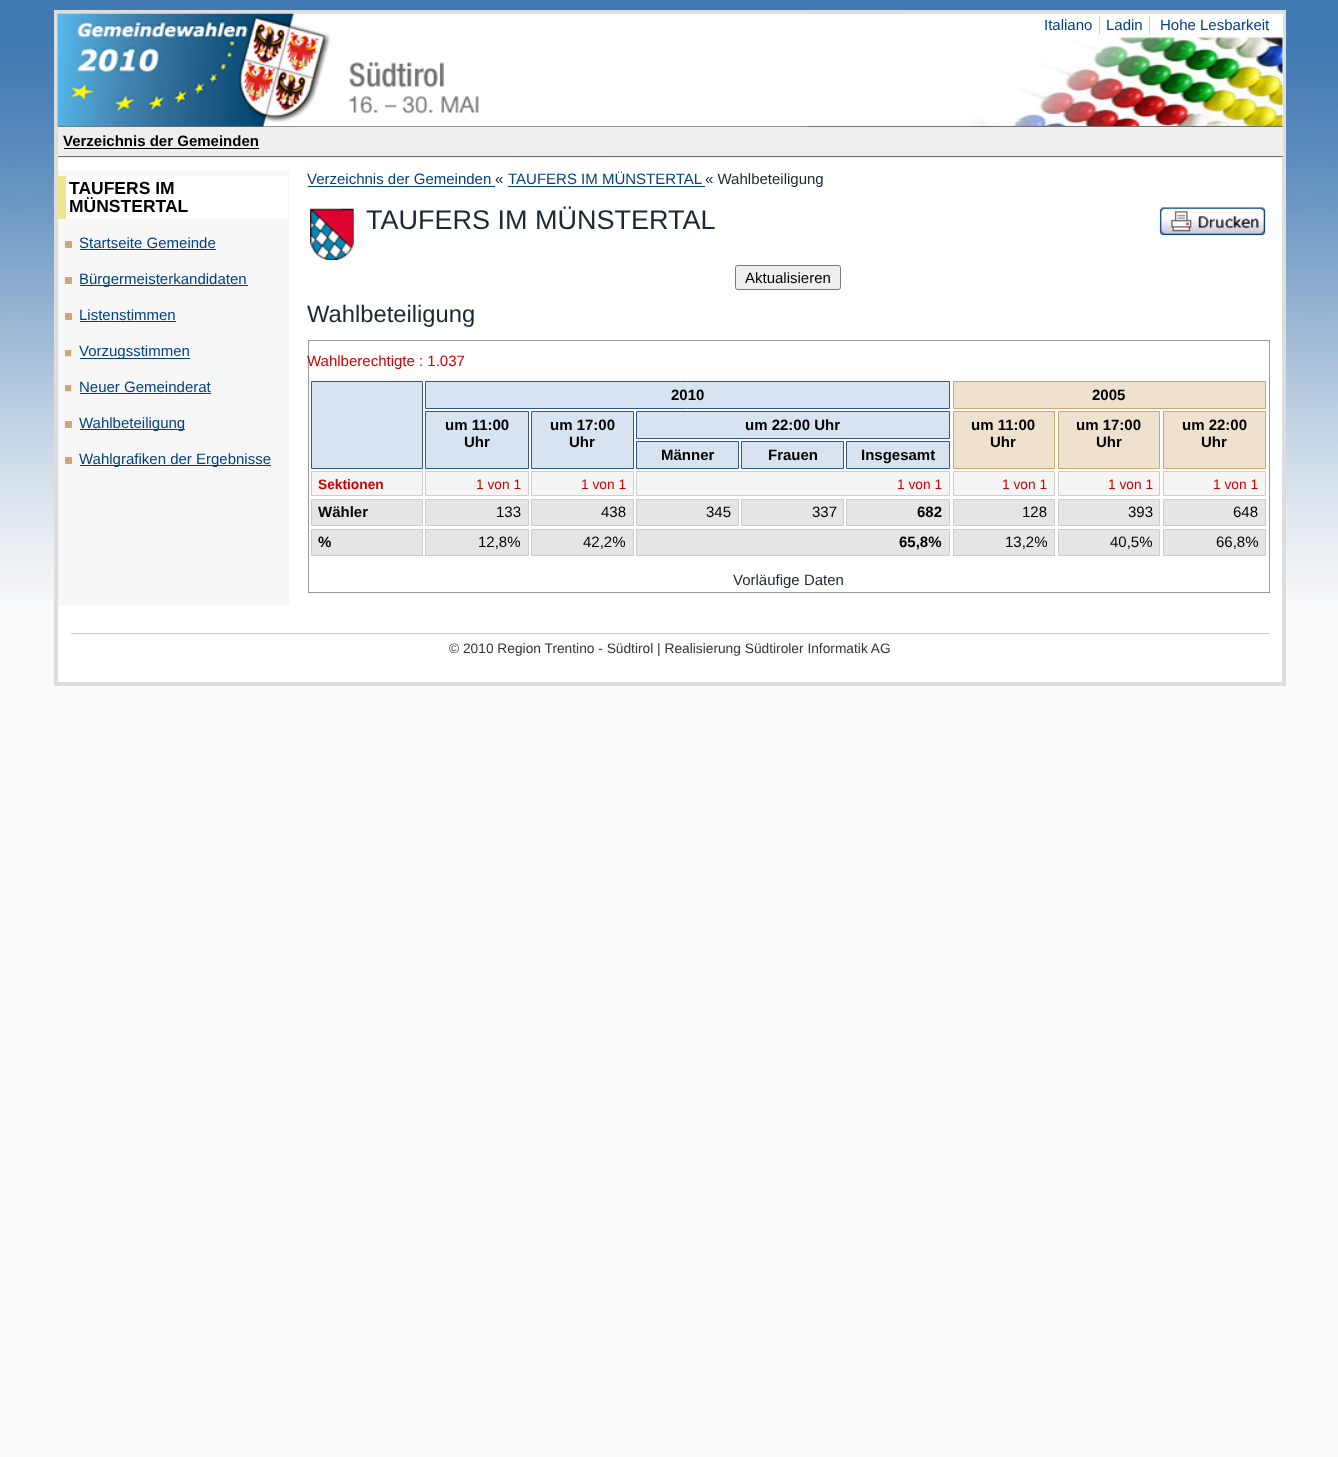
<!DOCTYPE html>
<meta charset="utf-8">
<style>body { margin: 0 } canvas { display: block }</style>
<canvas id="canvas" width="1338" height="1457"></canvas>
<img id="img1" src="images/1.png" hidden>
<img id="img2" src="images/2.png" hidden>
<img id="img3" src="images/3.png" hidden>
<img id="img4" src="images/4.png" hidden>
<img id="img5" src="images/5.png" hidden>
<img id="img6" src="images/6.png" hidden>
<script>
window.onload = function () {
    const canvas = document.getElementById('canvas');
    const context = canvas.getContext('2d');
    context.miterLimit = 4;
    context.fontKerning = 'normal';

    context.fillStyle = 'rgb(250, 250, 250)';
    context.fillRect(0, 0, 1338, 1457);
    context.drawImage(document.getElementById('img1'), 0, 0, 1338, 600);
    context.fillStyle = 'rgb(255, 255, 255)';
    context.fillRect(58, 158, 1224, 524);
    context.strokeStyle = 'rgb(221, 221, 221)';
    context.lineWidth = 4;
    context.strokeRect(56, 12, 1228, 672);
    context.fillRect(807, 14, 476, 112);
    context.drawImage(document.getElementById('img2'), 907, 13, 376, 113);
    context.fillStyle = 'rgb(112, 112, 112)';
    context.fillRect(58, 126, 1225, 1);
    context.drawImage(document.getElementById('img3'), 57, 13, 751, 114);
    context.fillStyle = 'rgb(204, 204, 204)';
    context.fillRect(1099, 16, 1, 18);
    context.fillRect(1149, 16, 1, 18);
    context.fillStyle = 'rgb(238, 238, 238)';
    context.fillRect(58, 127, 1225, 31);
    context.fillStyle = 'rgb(112, 112, 112)';
    context.fillRect(58, 156, 1225, 1);
    context.fillStyle = 'rgb(1, 1, 1)';
    context.fillRect(64, 148, 195, 1);
    context.fillStyle = 'rgb(247, 247, 247)';
    context.fillRect(58, 170, 231, 435);
    context.fillStyle = 'rgb(255, 255, 255)';
    context.fillRect(66, 176, 222, 43);
    context.fillStyle = 'rgb(240, 230, 140)';
    context.fillRect(58, 176, 8, 43);
    context.fillStyle = 'rgb(207, 167, 115)';
    context.fillRect(65, 241, 7, 7);
    context.fillStyle = 'rgb(0, 65, 130)';
    context.fillRect(80, 249, 136, 1);
    context.fillStyle = 'rgb(207, 167, 115)';
    context.fillRect(65, 277, 7, 7);
    context.fillStyle = 'rgb(0, 65, 130)';
    context.fillRect(80, 285, 168, 1);
    context.fillStyle = 'rgb(207, 167, 115)';
    context.fillRect(65, 313, 7, 7);
    context.fillStyle = 'rgb(0, 65, 130)';
    context.fillRect(80, 321, 96, 1);
    context.drawImage(document.getElementById('img4'), 65, 349, 7, 8);
    context.fillRect(80, 358, 110, 1);
    context.drawImage(document.getElementById('img4'), 65, 384, 7, 8);
    context.fillRect(80, 393, 131, 1);
    context.fillStyle = 'rgb(207, 167, 115)';
    context.fillRect(65, 421, 7, 7);
    context.fillStyle = 'rgb(0, 65, 130)';
    context.fillRect(80, 429, 105, 1);
    context.fillStyle = 'rgb(207, 167, 115)';
    context.fillRect(65, 457, 7, 7);
    context.fillStyle = 'rgb(0, 65, 130)';
    context.fillRect(80, 465, 191, 1);
    context.fillRect(308, 186, 187, 1);
    context.fillRect(508, 186, 197, 1);
    context.drawImage(document.getElementById('img5'), 310, 208, 44, 52);
    context.drawImage(document.getElementById('img6'), 1159, 207, 107, 28);
    context.fillStyle = 'rgb(239, 239, 239)';
    context.beginPath();
    context.roundRect(735.5, 265.5, 105, 24, 2);
    context.fill();
    context.strokeStyle = 'rgb(118, 118, 118)';
    context.lineWidth = 1;
    context.stroke();
    context.strokeStyle = 'rgb(153, 153, 153)';
    context.strokeRect(308.5, 340.5, 961, 252);
    context.fillStyle = 'rgb(215, 227, 241)';
    context.beginPath();
    context.rect(311.5, 381.5, 111, 87);
    context.fill();
    context.strokeStyle = 'rgb(48, 88, 140)';
    context.stroke();
    context.beginPath();
    context.rect(425.5, 381.5, 524, 27);
    context.fill();
    context.stroke();
    context.fillStyle = 'rgb(238, 225, 206)';
    context.beginPath();
    context.rect(953.5, 381.5, 312, 27);
    context.fill();
    context.strokeStyle = 'rgb(207, 167, 115)';
    context.stroke();
    context.fillStyle = 'rgb(215, 227, 241)';
    context.beginPath();
    context.rect(425.5, 411.5, 103, 57);
    context.fill();
    context.strokeStyle = 'rgb(48, 88, 140)';
    context.stroke();
    context.beginPath();
    context.rect(531.5, 411.5, 102, 57);
    context.fill();
    context.stroke();
    context.beginPath();
    context.rect(636.5, 411.5, 313, 27);
    context.fill();
    context.stroke();
    context.fillStyle = 'rgb(238, 225, 206)';
    context.beginPath();
    context.rect(953.5, 411.5, 101, 57);
    context.fill();
    context.strokeStyle = 'rgb(207, 167, 115)';
    context.stroke();
    context.beginPath();
    context.rect(1058.5, 411.5, 101, 57);
    context.fill();
    context.stroke();
    context.beginPath();
    context.rect(1163.5, 411.5, 102, 57);
    context.fill();
    context.stroke();
    context.fillStyle = 'rgb(215, 227, 241)';
    context.beginPath();
    context.rect(636.5, 441.5, 102, 27);
    context.fill();
    context.strokeStyle = 'rgb(48, 88, 140)';
    context.stroke();
    context.beginPath();
    context.rect(741.5, 441.5, 102, 27);
    context.fill();
    context.stroke();
    context.beginPath();
    context.rect(846.5, 441.5, 103, 27);
    context.fill();
    context.stroke();
    context.fillStyle = 'rgb(245, 245, 245)';
    context.beginPath();
    context.rect(311.5, 471.5, 111, 24);
    context.fill();
    context.strokeStyle = 'rgb(204, 204, 204)';
    context.stroke();
    context.beginPath();
    context.rect(425.5, 471.5, 103, 24);
    context.fill();
    context.stroke();
    context.beginPath();
    context.rect(531.5, 471.5, 102, 24);
    context.fill();
    context.stroke();
    context.beginPath();
    context.rect(636.5, 471.5, 313, 24);
    context.fill();
    context.stroke();
    context.beginPath();
    context.rect(953.5, 471.5, 101, 24);
    context.fill();
    context.stroke();
    context.beginPath();
    context.rect(1058.5, 471.5, 101, 24);
    context.fill();
    context.stroke();
    context.beginPath();
    context.rect(1163.5, 471.5, 102, 24);
    context.fill();
    context.stroke();
    context.fillStyle = 'rgb(229, 229, 229)';
    context.beginPath();
    context.rect(311.5, 499.5, 111, 26);
    context.fill();
    context.stroke();
    context.beginPath();
    context.rect(425.5, 499.5, 103, 26);
    context.fill();
    context.stroke();
    context.beginPath();
    context.rect(531.5, 499.5, 102, 26);
    context.fill();
    context.stroke();
    context.beginPath();
    context.rect(636.5, 499.5, 102, 26);
    context.fill();
    context.stroke();
    context.beginPath();
    context.rect(741.5, 499.5, 102, 26);
    context.fill();
    context.stroke();
    context.beginPath();
    context.rect(846.5, 499.5, 103, 26);
    context.fill();
    context.stroke();
    context.beginPath();
    context.rect(953.5, 499.5, 101, 26);
    context.fill();
    context.stroke();
    context.beginPath();
    context.rect(1058.5, 499.5, 101, 26);
    context.fill();
    context.stroke();
    context.beginPath();
    context.rect(1163.5, 499.5, 102, 26);
    context.fill();
    context.stroke();
    context.beginPath();
    context.rect(311.5, 529.5, 111, 26);
    context.fill();
    context.stroke();
    context.beginPath();
    context.rect(425.5, 529.5, 103, 26);
    context.fill();
    context.stroke();
    context.beginPath();
    context.rect(531.5, 529.5, 102, 26);
    context.fill();
    context.stroke();
    context.beginPath();
    context.rect(636.5, 529.5, 313, 26);
    context.fill();
    context.stroke();
    context.beginPath();
    context.rect(953.5, 529.5, 101, 26);
    context.fill();
    context.stroke();
    context.beginPath();
    context.rect(1058.5, 529.5, 101, 26);
    context.fill();
    context.stroke();
    context.beginPath();
    context.rect(1163.5, 529.5, 102, 26);
    context.fill();
    context.stroke();
    context.fillStyle = 'rgb(204, 204, 204)';
    context.fillRect(71, 633, 1198, 1);
    context.font = '15px Liberation Sans';
    context.fillStyle = 'rgb(0, 65, 130)';
    context.fillText('Italiano', 1044, 30);
    context.fillText('Ladin', 1106, 30);
    context.fillText('Hohe Lesbarkeit', 1160, 30);
    context.font = 'bold 15px Liberation Sans';
    context.fillStyle = 'rgb(0, 0, 0)';
    context.fillText('Verzeichnis der Gemeinden', 63, 146);
    context.font = 'bold 17.5px Liberation Sans';
    context.fillText('TAUFERS IM', 69, 194);
    context.fillText('MÜNSTERTAL', 69, 212);
    context.font = '15px Liberation Sans';
    context.fillStyle = 'rgb(0, 65, 130)';
    context.fillText('Startseite Gemeinde', 79, 248);
    context.fillText('Bürgermeisterkandidaten', 79, 284);
    context.fillText('Listenstimmen', 79, 320);
    context.fillText('Vorzugsstimmen', 79, 356);
    context.fillText('Neuer Gemeinderat', 79, 392);
    context.fillText('Wahlbeteiligung', 79, 428);
    context.fillText('Wahlgrafiken der Ergebnisse', 79, 464);
    context.fillText('Verzeichnis der Gemeinden', 307, 184);
    context.fillStyle = 'rgb(27, 39, 50)';
    context.fillText('«', 495, 184);
    context.fillStyle = 'rgb(0, 65, 130)';
    context.fillText('TAUFERS IM MÜNSTERTAL', 508, 184);
    context.fillStyle = 'rgb(27, 39, 50)';
    context.fillText('« Wahlbeteiligung', 705, 184);
    context.font = '27px Liberation Sans';
    context.fillText('TAUFERS IM MÜNSTERTAL', 366, 229);
    context.font = '15px Liberation Sans';
    context.fillStyle = 'rgb(0, 0, 0)';
    context.fillText('Aktualisieren', 745, 283);
    context.font = '23.75px Liberation Sans';
    context.fillStyle = 'rgb(27, 39, 50)';
    context.fillText('Wahlbeteiligung', 307, 322);
    context.font = '15px Liberation Sans';
    context.fillStyle = 'rgb(204, 0, 0)';
    context.fillText('Wahlberechtigte : 1.037', 307, 366);
    context.font = 'bold 15px Liberation Sans';
    context.fillStyle = 'rgb(0, 0, 0)';
    context.fillText('2010', 671, 400);
    context.fillText('2005', 1092, 400);
    context.fillText('um 11:00', 445, 430);
    context.fillText('Uhr', 464, 447);
    context.fillText('um 17:00', 550, 430);
    context.fillText('Uhr', 569, 447);
    context.fillText('um 22:00 Uhr', 745, 430);
    context.fillText('um 11:00', 971, 430);
    context.fillText('Uhr', 990, 447);
    context.fillText('um 17:00', 1076, 430);
    context.fillText('Uhr', 1096, 447);
    context.fillText('um 22:00', 1182, 430);
    context.fillText('Uhr', 1201, 447);
    context.fillText('Männer', 661, 460);
    context.fillText('Frauen', 768, 460);
    context.fillText('Insgesamt', 861, 460);
    context.font = 'bold 13.75px Liberation Sans';
    context.fillStyle = 'rgb(204, 0, 0)';
    context.fillText('Sektionen', 318, 489);
    context.font = '13.75px Liberation Sans';
    context.fillText('1 von 1', 476, 489);
    context.fillText('1 von 1', 581, 489);
    context.fillText('1 von 1', 897, 489);
    context.fillText('1 von 1', 1002, 489);
    context.fillText('1 von 1', 1108, 489);
    context.fillText('1 von 1', 1213, 489);
    context.font = 'bold 15px Liberation Sans';
    context.fillStyle = 'rgb(0, 0, 0)';
    context.fillText('Wähler', 318, 517);
    context.font = '15px Liberation Sans';
    context.fillText('133', 496, 517);
    context.fillText('438', 601, 517);
    context.fillText('345', 706, 517);
    context.fillText('337', 812, 517);
    context.font = 'bold 15px Liberation Sans';
    context.fillText('682', 917, 517);
    context.font = '15px Liberation Sans';
    context.fillText('128', 1022, 517);
    context.fillText('393', 1128, 517);
    context.fillText('648', 1233, 517);
    context.font = 'bold 15px Liberation Sans';
    context.fillText('%', 318, 547);
    context.font = '15px Liberation Sans';
    context.fillText('12,8%', 478, 547);
    context.fillText('42,2%', 583, 547);
    context.font = 'bold 15px Liberation Sans';
    context.fillText('65,8%', 899, 547);
    context.font = '15px Liberation Sans';
    context.fillText('13,2%', 1005, 547);
    context.fillText('40,5%', 1110, 547);
    context.fillText('66,8%', 1216, 547);
    context.fillStyle = 'rgb(27, 39, 50)';
    context.fillText('Vorläufige Daten', 733, 585);
    context.font = '13.75px Liberation Sans';
    context.fillStyle = 'rgb(51, 51, 51)';
    context.fillText('© 2010 Region Trentino - Südtirol | Realisierung Südtiroler Informatik AG', 449, 653);
};
</script>
